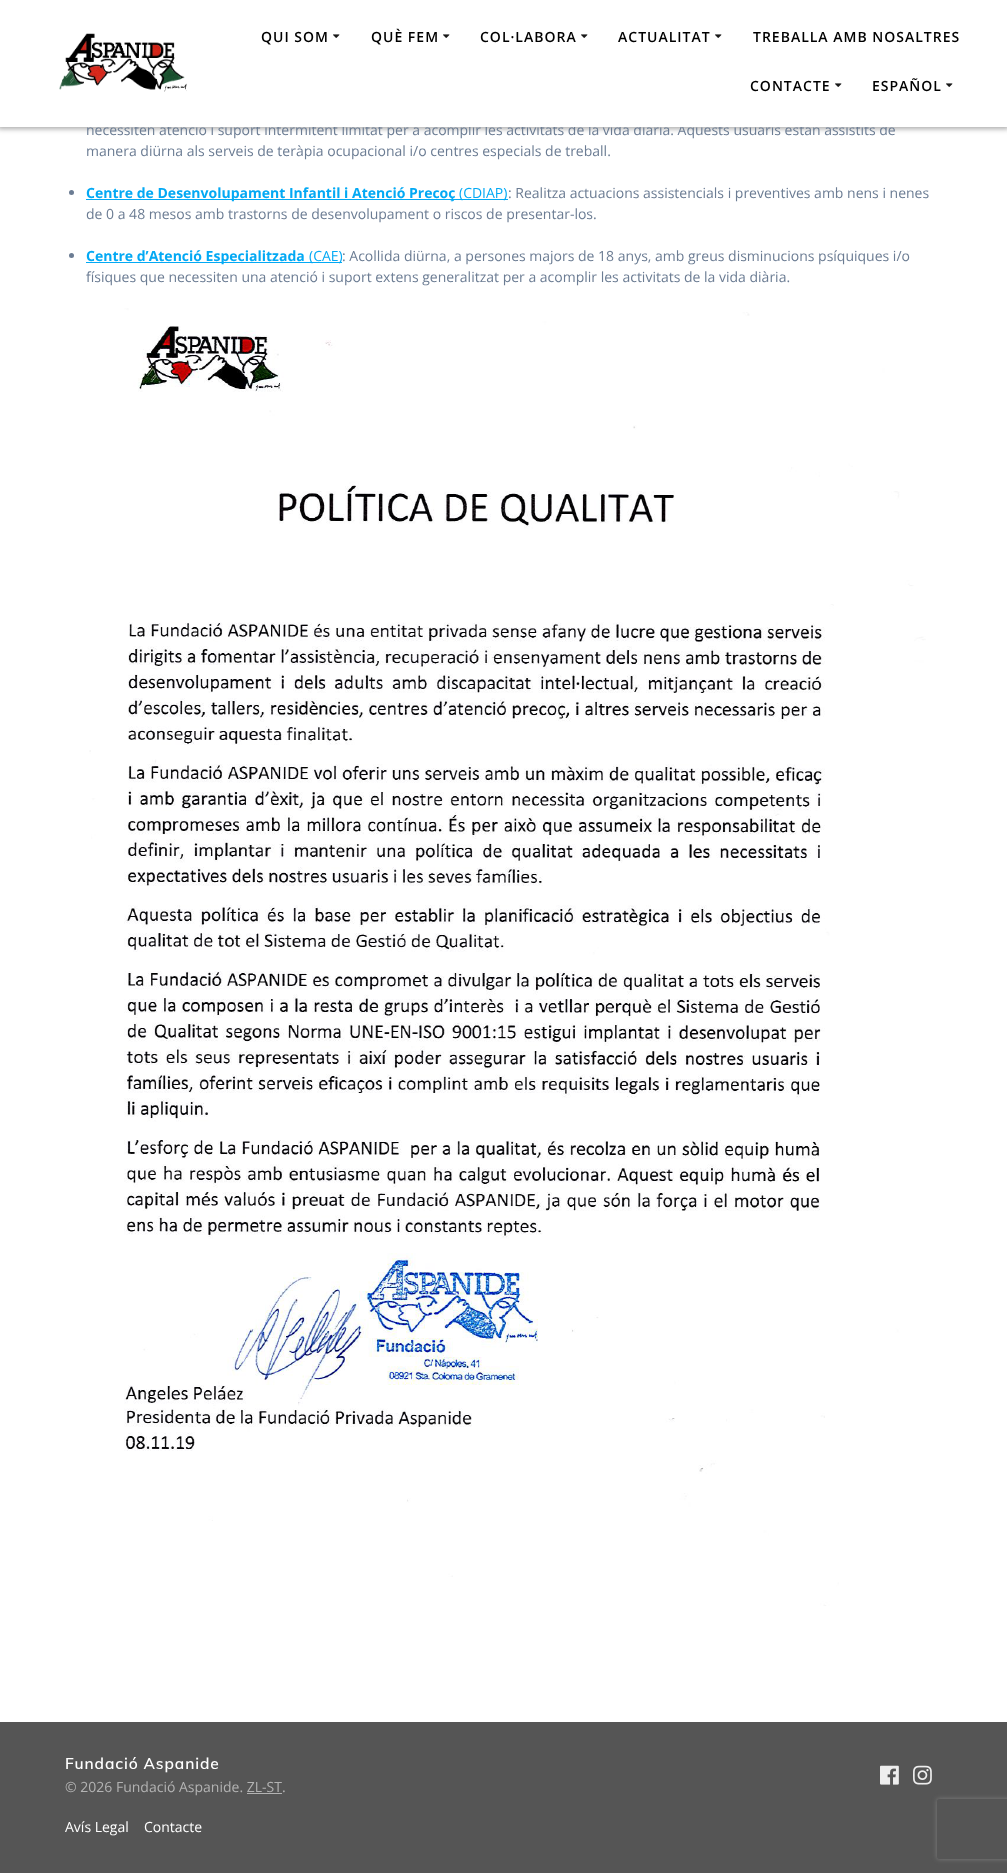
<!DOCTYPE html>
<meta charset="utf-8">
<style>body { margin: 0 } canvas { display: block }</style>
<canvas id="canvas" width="1007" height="1873"></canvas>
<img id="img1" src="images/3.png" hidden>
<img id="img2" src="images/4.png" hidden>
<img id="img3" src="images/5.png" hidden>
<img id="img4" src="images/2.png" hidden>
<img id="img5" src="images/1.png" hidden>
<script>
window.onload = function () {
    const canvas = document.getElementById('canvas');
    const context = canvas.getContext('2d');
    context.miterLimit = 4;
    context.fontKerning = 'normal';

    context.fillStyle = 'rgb(255, 255, 255)';
    context.fillRect(0, 0, 1007, 1873);
    context.fillStyle = 'rgba(0, 0, 0, 0.33)';
    context.filter = 'blur(2.5px)';
    context.beginPath();
    context.rect(-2, -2, 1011, 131);
    context.fill();
    context.filter = 'none';
    context.fillStyle = 'rgb(107, 124, 147)';
    context.beginPath();
    context.arc(71.5, 192.5, 2.5, 0, 2 * Math.PI);
    context.fill();
    context.fillStyle = 'rgb(3, 169, 244)';
    context.fillRect(86, 199, 422, 1);
    context.fillStyle = 'rgb(107, 124, 147)';
    context.beginPath();
    context.arc(71.5, 255.5, 2.5, 0, 2 * Math.PI);
    context.fill();
    context.fillStyle = 'rgb(3, 169, 244)';
    context.fillRect(86, 262, 256, 1);
    context.drawImage(document.getElementById('img1'), 89, 308, 837, 1298);
    context.fillStyle = 'rgb(85, 85, 85)';
    context.fillRect(0, 1722, 1007, 151);
    context.fillStyle = 'rgb(179, 179, 179)';
    context.fillRect(247, 1793, 35, 1);
    context.drawImage(document.getElementById('img2'), 880, 1765, 19, 20);
    context.drawImage(document.getElementById('img3'), 913, 1765, 19, 20);
    context.save();
    context.beginPath();
    context.moveTo(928, 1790);
    context.lineTo(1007, 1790);
    context.lineTo(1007, 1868);
    context.lineTo(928, 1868);
    context.closePath();
    context.moveTo(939, 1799);
    context.lineTo(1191, 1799);
    context.bezierCurveTo(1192, 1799, 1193, 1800, 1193, 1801);
    context.lineTo(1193, 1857);
    context.bezierCurveTo(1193, 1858, 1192, 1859, 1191, 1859);
    context.lineTo(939, 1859);
    context.bezierCurveTo(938, 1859, 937, 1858, 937, 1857);
    context.lineTo(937, 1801);
    context.bezierCurveTo(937, 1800, 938, 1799, 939, 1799);
    context.closePath();
    context.clip('evenodd');
    context.fillStyle = 'rgb(128, 128, 128)';
    context.filter = 'blur(2.5px)';
    context.beginPath();
    context.roundRect(937, 1799, 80, 60, 2);
    context.fill();
    context.filter = 'none';
    context.restore();
    context.font = '14px Open Sans';
    context.fillStyle = 'rgb(107, 124, 147)';
    context.fillText('necessiten atenció i suport intermitent limitat per a acomplir les activitats de la vida diària. Aquests usuaris estan assistits de', 86, 135);
    context.fillStyle = 'rgb(255, 255, 255)';
    context.fillRect(0, 0, 1007, 127);
    context.drawImage(document.getElementById('img4'), 946, 83, 7, 4);
    context.letterSpacing = '1px';
    context.font = '600 14px Open Sans';
    context.fillStyle = 'rgb(0, 0, 0)';
    context.fillText('ESPAÑOL', 872, 91);
    context.drawImage(document.getElementById('img4'), 835, 83, 7, 4);
    context.fillText('CONTACTE', 750, 91);
    context.fillText('TREBALLA AMB NOSALTRES', 753, 42);
    context.drawImage(document.getElementById('img4'), 715, 34, 7, 4);
    context.fillText('ACTUALITAT', 618, 42);
    context.drawImage(document.getElementById('img4'), 581, 34, 7, 4);
    context.fillText('COL·LABORA', 480, 42);
    context.drawImage(document.getElementById('img4'), 443, 34, 7, 4);
    context.fillText('QUÈ FEM', 371, 42);
    context.drawImage(document.getElementById('img4'), 333, 34, 7, 4);
    context.fillText('QUI SOM', 261, 42);
    context.drawImage(document.getElementById('img5'), 59, 33, 128, 59);
    context.letterSpacing = '0px';
    context.font = '14px Open Sans';
    context.fillStyle = 'rgb(107, 124, 147)';
    context.fillText('manera diürna als serveis de teràpia ocupacional i/o centres especials de treball.', 86, 156);
    context.font = 'bold 14px Open Sans';
    context.fillStyle = 'rgb(3, 169, 244)';
    context.fillText('Centre de Desenvolupament Infantil i Atenció Precoç', 86, 198);
    context.font = '14px Open Sans';
    context.fillText('(CDIAP)', 459, 198);
    context.fillStyle = 'rgb(107, 124, 147)';
    context.fillText(': Realitza actuacions assistencials i preventives amb nens i nenes', 508, 198);
    context.fillText('de 0 a 48 mesos amb trastorns de desenvolupament o riscos de presentar-los.', 86, 219);
    context.font = 'bold 14px Open Sans';
    context.fillStyle = 'rgb(3, 169, 244)';
    context.fillText('Centre d’Atenció Especialitzada', 86, 261);
    context.font = '14px Open Sans';
    context.fillText('(CAE)', 309, 261);
    context.fillStyle = 'rgb(107, 124, 147)';
    context.fillText(': Acollida diürna, a persones majors de 18 anys, amb greus disminucions psíquiques i/o', 342, 261);
    context.fillText('físiques que necessiten una atenció i suport extens generalitzat per a acomplir les activitats de la vida diària.', 86, 282);
    context.letterSpacing = '0.9px';
    context.font = '600 15.5px Muli';
    context.fillStyle = 'rgb(255, 255, 255)';
    context.fillText('Fundació Aspanide', 65, 1769);
    context.letterSpacing = '0px';
    context.font = '14px Open Sans';
    context.fillStyle = 'rgb(179, 179, 179)';
    context.fillText('© 2026 Fundació Aspanide. ZL-ST.', 65, 1792);
    context.fillStyle = 'rgb(255, 255, 255)';
    context.fillText('Avís Legal', 65, 1832);
    context.fillText('Contacte', 144, 1832);
};
</script>
